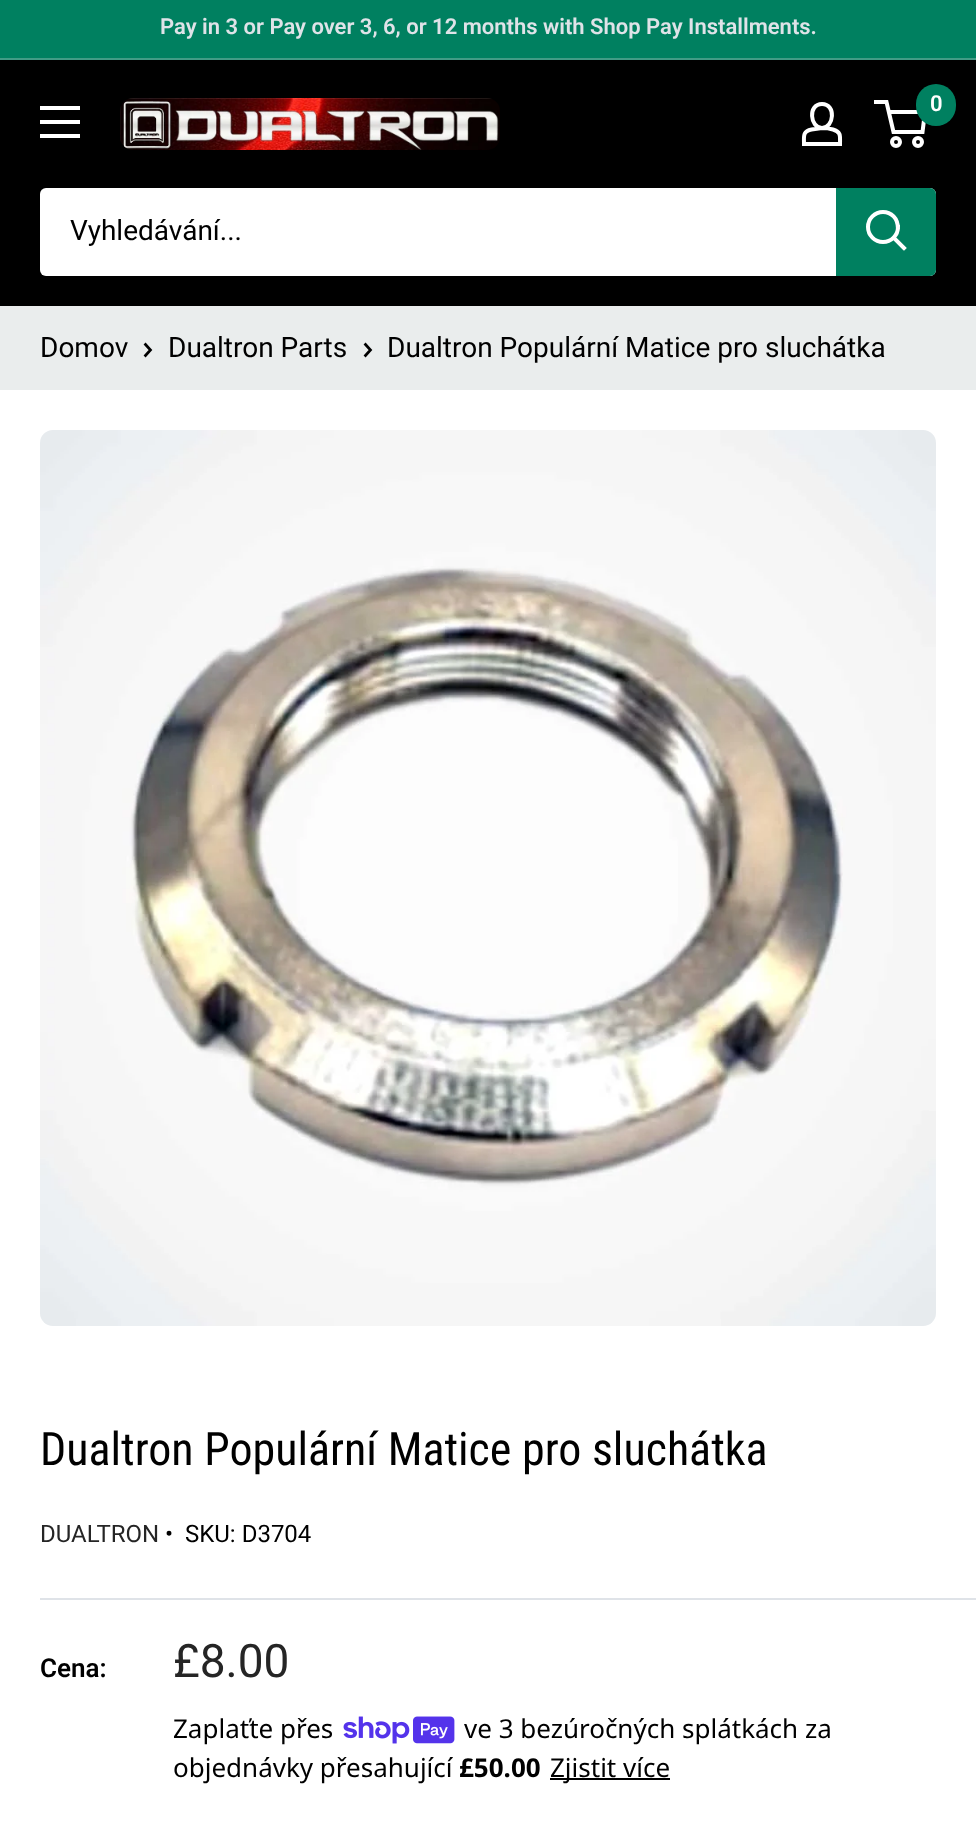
<!DOCTYPE html>
<meta charset="utf-8">
<style>body { margin: 0 } canvas { display: block }</style>
<canvas id="canvas" width="976" height="1845"></canvas>
<img id="img1" src="images/1.png" hidden>
<img id="img2" src="images/2.png" hidden>
<img id="img3" src="images/3.png" hidden>
<script>
window.onload = function () {
    const canvas = document.getElementById('canvas');
    const context = canvas.getContext('2d');
    context.miterLimit = 4;
    context.fontKerning = 'normal';

    context.fillStyle = 'rgb(234, 237, 237)';
    context.fillRect(0, 0, 976, 1845);
    context.fillStyle = 'rgb(0, 128, 96)';
    context.fillRect(0, 0, 976, 58);
    context.fillStyle = 'rgb(66, 156, 134)';
    context.fillRect(0, 58, 976, 2);
    context.fillStyle = 'rgb(0, 0, 0)';
    context.fillRect(0, 60, 976, 246);
    context.fillStyle = 'rgb(255, 255, 255)';
    context.beginPath();
    context.moveTo(40, 134);
    context.lineTo(80, 134);
    context.lineTo(80, 138);
    context.lineTo(40, 138);
    context.closePath();
    context.moveTo(40, 106);
    context.lineTo(80, 106);
    context.lineTo(80, 110);
    context.lineTo(40, 110);
    context.closePath();
    context.moveTo(40, 120);
    context.lineTo(80, 120);
    context.lineTo(80, 124);
    context.lineTo(40, 124);
    context.closePath();
    context.fill('evenodd');
    context.drawImage(document.getElementById('img1'), 120, 98, 380, 52);
    context.beginPath();
    context.moveTo(822, 128);
    context.bezierCurveTo(826, 128, 829.5, 128.5, 833, 129.5);
    context.bezierCurveTo(841.5, 132, 840, 136.5, 840, 144);
    context.lineTo(804, 144);
    context.bezierCurveTo(804, 136, 802.5, 131.5, 811.5, 129.5);
    context.closePath();
    context.moveTo(822, 128);
    context.bezierCurveTo(810, 128, 807.5, 104, 822, 104);
    context.bezierCurveTo(836.5, 104, 834, 128, 822, 128);
    context.closePath();
    context.strokeStyle = 'rgb(255, 255, 255)';
    context.lineWidth = 4;
    context.stroke();
    context.beginPath();
    context.arc(896, 142, 4, 0, 2 * Math.PI);
    context.stroke();
    context.beginPath();
    context.arc(918, 142, 4, 0, 2 * Math.PI);
    context.stroke();
    context.beginPath();
    context.moveTo(888.5, 112);
    context.lineTo(925, 112);
    context.lineTo(922.5, 132);
    context.lineTo(893.5, 132);
    context.lineTo(886.5, 102);
    context.lineTo(874, 102);
    context.stroke();
    context.fillStyle = 'rgb(0, 128, 96)';
    context.beginPath();
    context.roundRect(916, 84, 40, 42, 20);
    context.fill();
    context.fillStyle = 'rgb(255, 255, 255)';
    context.beginPath();
    context.roundRect(40, 188, 896, 88, 6);
    context.fill();
    context.fillStyle = 'rgb(0, 128, 96)';
    context.beginPath();
    context.roundRect(836, 188, 100, 88, [0, 6, 6, 0]);
    context.fill();
    context.beginPath();
    context.moveTo(904, 248);
    context.lineTo(894, 238);
    context.lineCap = 'square';
    context.stroke();
    context.beginPath();
    context.arc(883, 227, 15, 0, 2 * Math.PI);
    context.stroke();
    context.beginPath();
    context.moveTo(145.5, 344.5);
    context.lineTo(150.5, 350);
    context.lineTo(145.5, 355.5);
    context.strokeStyle = 'rgb(0, 0, 0)';
    context.lineWidth = 2.7;
    context.stroke();
    context.beginPath();
    context.moveTo(365.5, 344.5);
    context.lineTo(370.5, 350);
    context.lineTo(365.5, 355.5);
    context.stroke();
    context.fillStyle = 'rgb(255, 255, 255)';
    context.fillRect(0, 390, 976, 1455);
    context.drawImage(document.getElementById('img2'), 40, 430, 896, 896);
    context.fillStyle = 'rgb(223, 227, 232)';
    context.fillRect(40, 1598, 936, 2);
    context.drawImage(document.getElementById('img3'), 343, 1716, 112, 28);
    context.fillStyle = 'rgb(0, 0, 0)';
    context.fillRect(550, 1778, 120, 2);
    context.font = '600 22px Roboto';
    context.fillStyle = 'rgb(223, 227, 232)';
    context.fillText('Pay in 3 or Pay over 3, 6, or 12 months with Shop Pay Installments.', 160, 34);
    context.fillStyle = 'rgb(255, 255, 255)';
    context.fillText('0', 930, 111);
    context.font = '28px Roboto';
    context.fillStyle = 'rgb(0, 0, 0)';
    context.fillText('Vyhledávání...', 70, 240);
    context.fillText('Domov', 40, 357);
    context.fillText('Dualtron Parts', 168, 357);
    context.fillText('Dualtron Populární Matice pro sluchátka', 387, 357);
    context.font = '46px Roboto Condensed';
    context.fillText('Dualtron Populární Matice pro sluchátka', 40, 1465);
    context.font = '24px Roboto';
    context.fillStyle = 'rgb(37, 37, 37)';
    context.fillText('DUALTRON', 40, 1542);
    context.fillStyle = 'rgb(0, 0, 0)';
    context.fillText('•', 165, 1542);
    context.fillText('SKU: D3704', 185, 1542);
    context.font = '600 26px Roboto';
    context.fillText('Cena:', 40, 1677);
    context.font = '46px Roboto';
    context.fillStyle = 'rgb(37, 37, 37)';
    context.fillText('£8.00', 173, 1677);
    context.font = '26px Noto Sans';
    context.fillStyle = 'rgb(0, 0, 0)';
    context.fillText('Zaplaťte přes', 173, 1738);
    context.fillText('ve 3 bezúročných splátkách za', 464, 1738);
    context.fillText('objednávky přesahující', 173, 1777);
    context.font = 'bold 26px Noto Sans';
    context.fillText('£50.00', 459, 1777);
    context.font = '26px Noto Sans';
    context.fillText('Zjistit více', 550, 1777);
};
</script>
